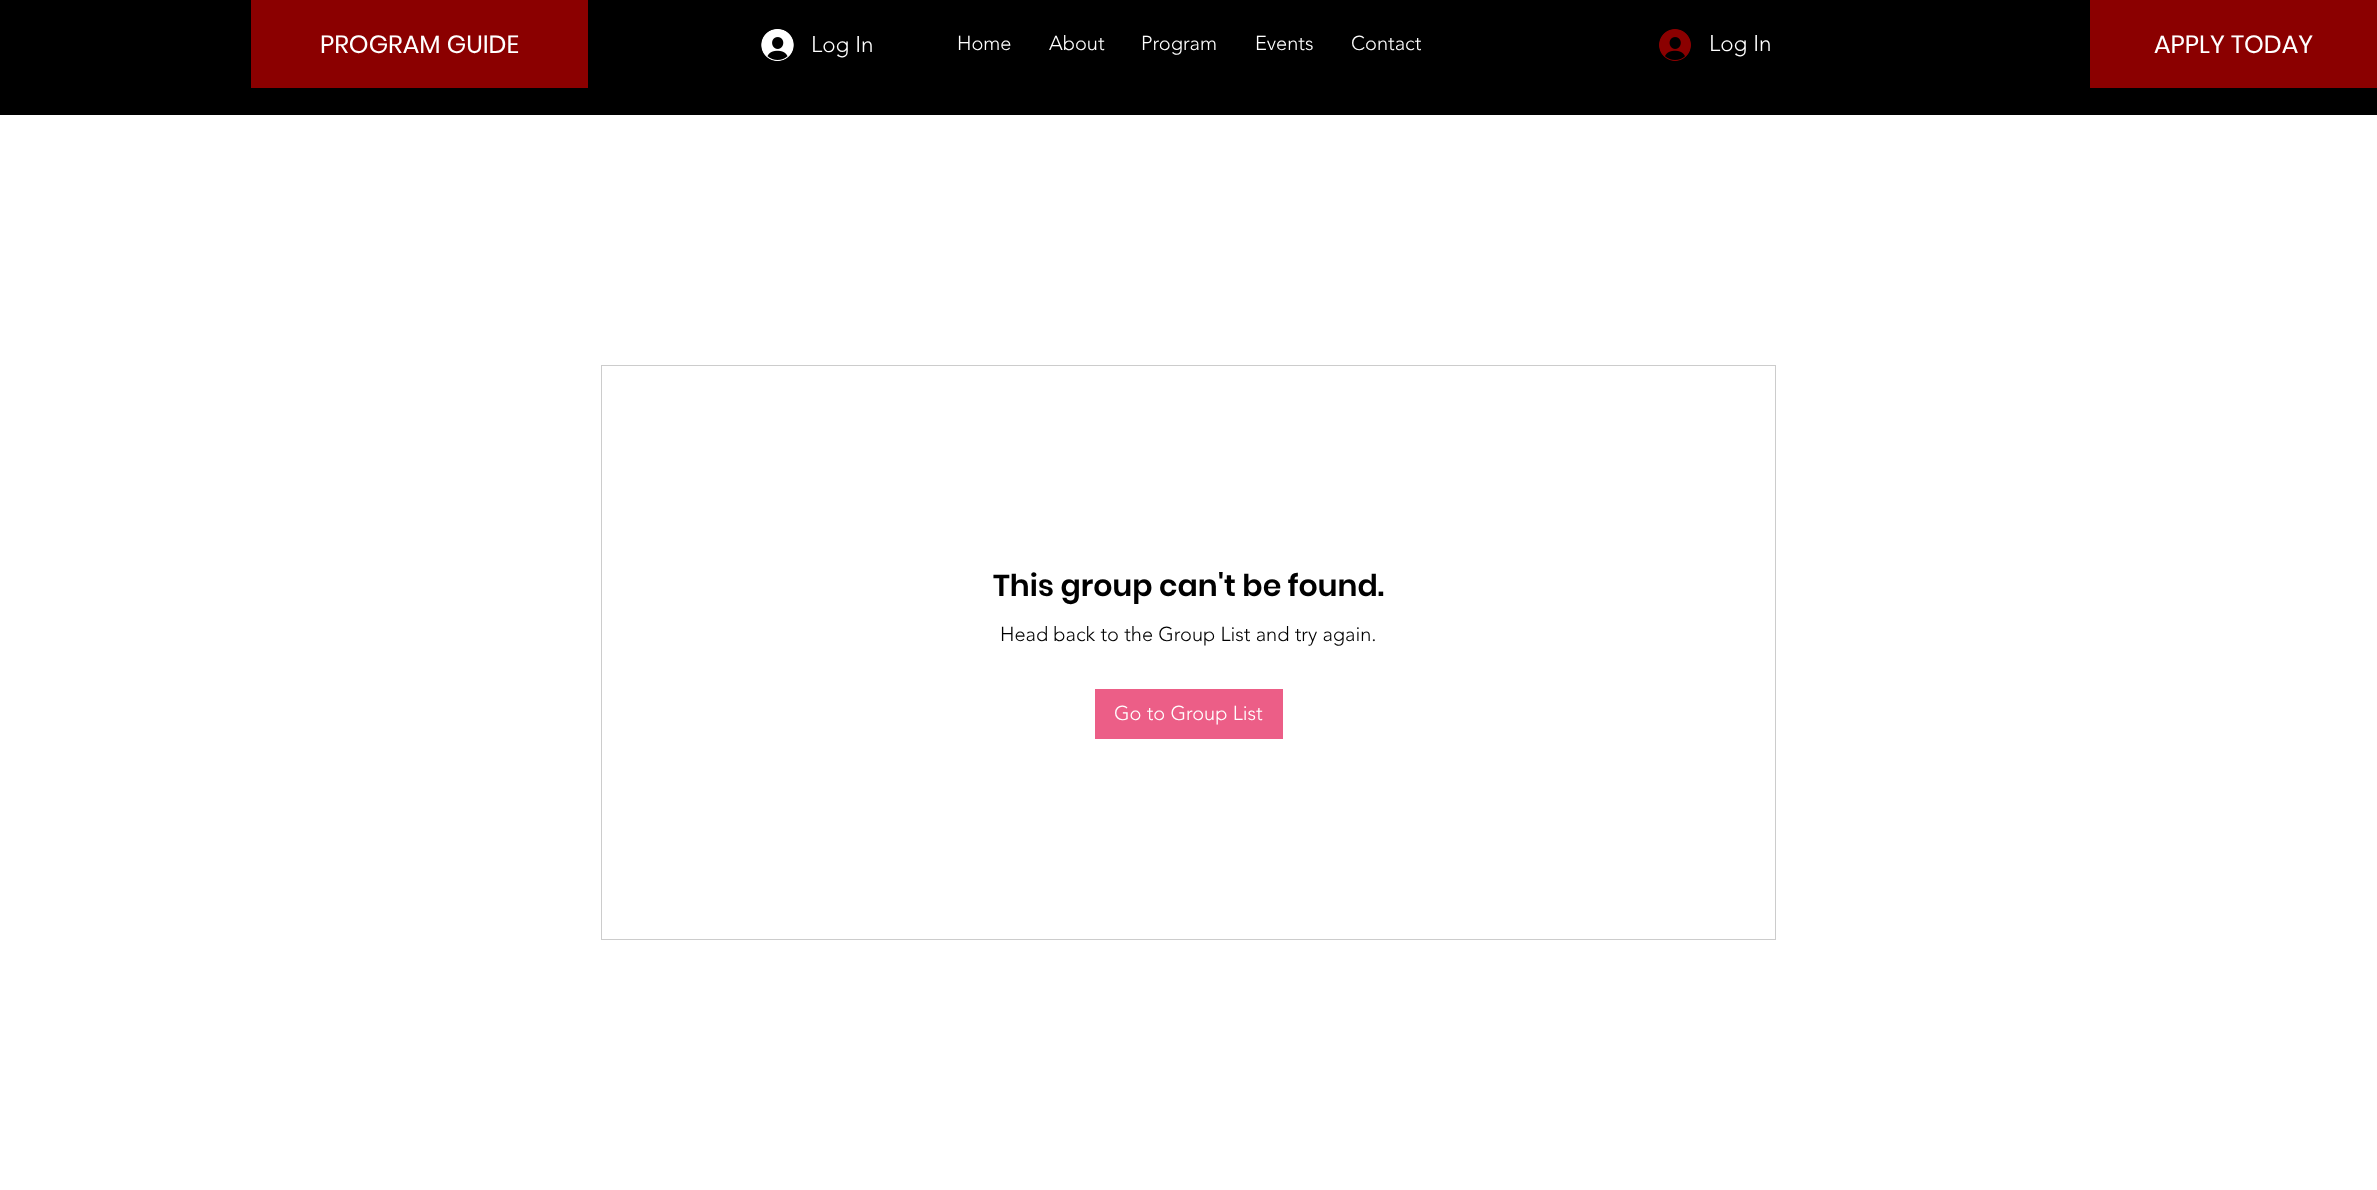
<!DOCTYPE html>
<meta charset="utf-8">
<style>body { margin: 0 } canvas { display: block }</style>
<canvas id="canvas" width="2377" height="1190"></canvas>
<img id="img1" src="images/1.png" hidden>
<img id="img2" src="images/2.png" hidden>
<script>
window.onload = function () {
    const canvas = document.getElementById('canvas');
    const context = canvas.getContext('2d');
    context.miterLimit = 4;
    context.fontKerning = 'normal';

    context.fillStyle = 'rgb(255, 255, 255)';
    context.fillRect(0, 0, 2377, 1190);
    context.fillStyle = 'rgb(0, 0, 0)';
    context.fillRect(0, 0, 2377, 115);
    context.fillStyle = 'rgb(139, 0, 0)';
    context.fillRect(251, 0, 337, 88);
    context.drawImage(document.getElementById('img1'), 761, 29, 33, 32);
    context.drawImage(document.getElementById('img2'), 1659, 29, 32, 32);
    context.fillRect(2090, 0, 287, 88);
    context.strokeStyle = 'rgb(204, 204, 204)';
    context.strokeRect(601.5, 365.5, 1174, 574);
    context.fillStyle = 'rgb(236, 94, 135)';
    context.fillRect(1095, 689, 188, 50);
    context.font = '25px Poppins';
    context.fillStyle = 'rgb(255, 255, 255)';
    context.fillText('PROGRAM GUIDE', 320, 53);
    context.font = '300 22.5px "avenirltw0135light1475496"';
    context.fillText('Log In', 811, 52);
    context.font = '300 20px "avenirltw0135light1475496"';
    context.fillText('Home', 957, 50);
    context.fillText('About', 1049, 50);
    context.fillText('Program', 1141, 50);
    context.fillText('Events', 1255, 50);
    context.fillText('Contact', 1351, 50);
    context.font = '300 22.5px "avenirltw0135light1475496"';
    context.fillText('Log In', 1709, 51);
    context.font = '25px Poppins';
    context.fillText('APPLY TODAY', 2154, 53);
    context.font = '600 30px Poppins';
    context.fillStyle = 'rgb(0, 0, 0)';
    context.fillText('This group can\'t be found.', 993, 596);
    context.font = '300 20px "avenirltw0135light1475496"';
    context.fillText('Head back to the Group List and try again.', 1000, 641);
    context.fillStyle = 'rgb(255, 255, 255)';
    context.fillText('Go to Group List', 1114, 720);
};
</script>
